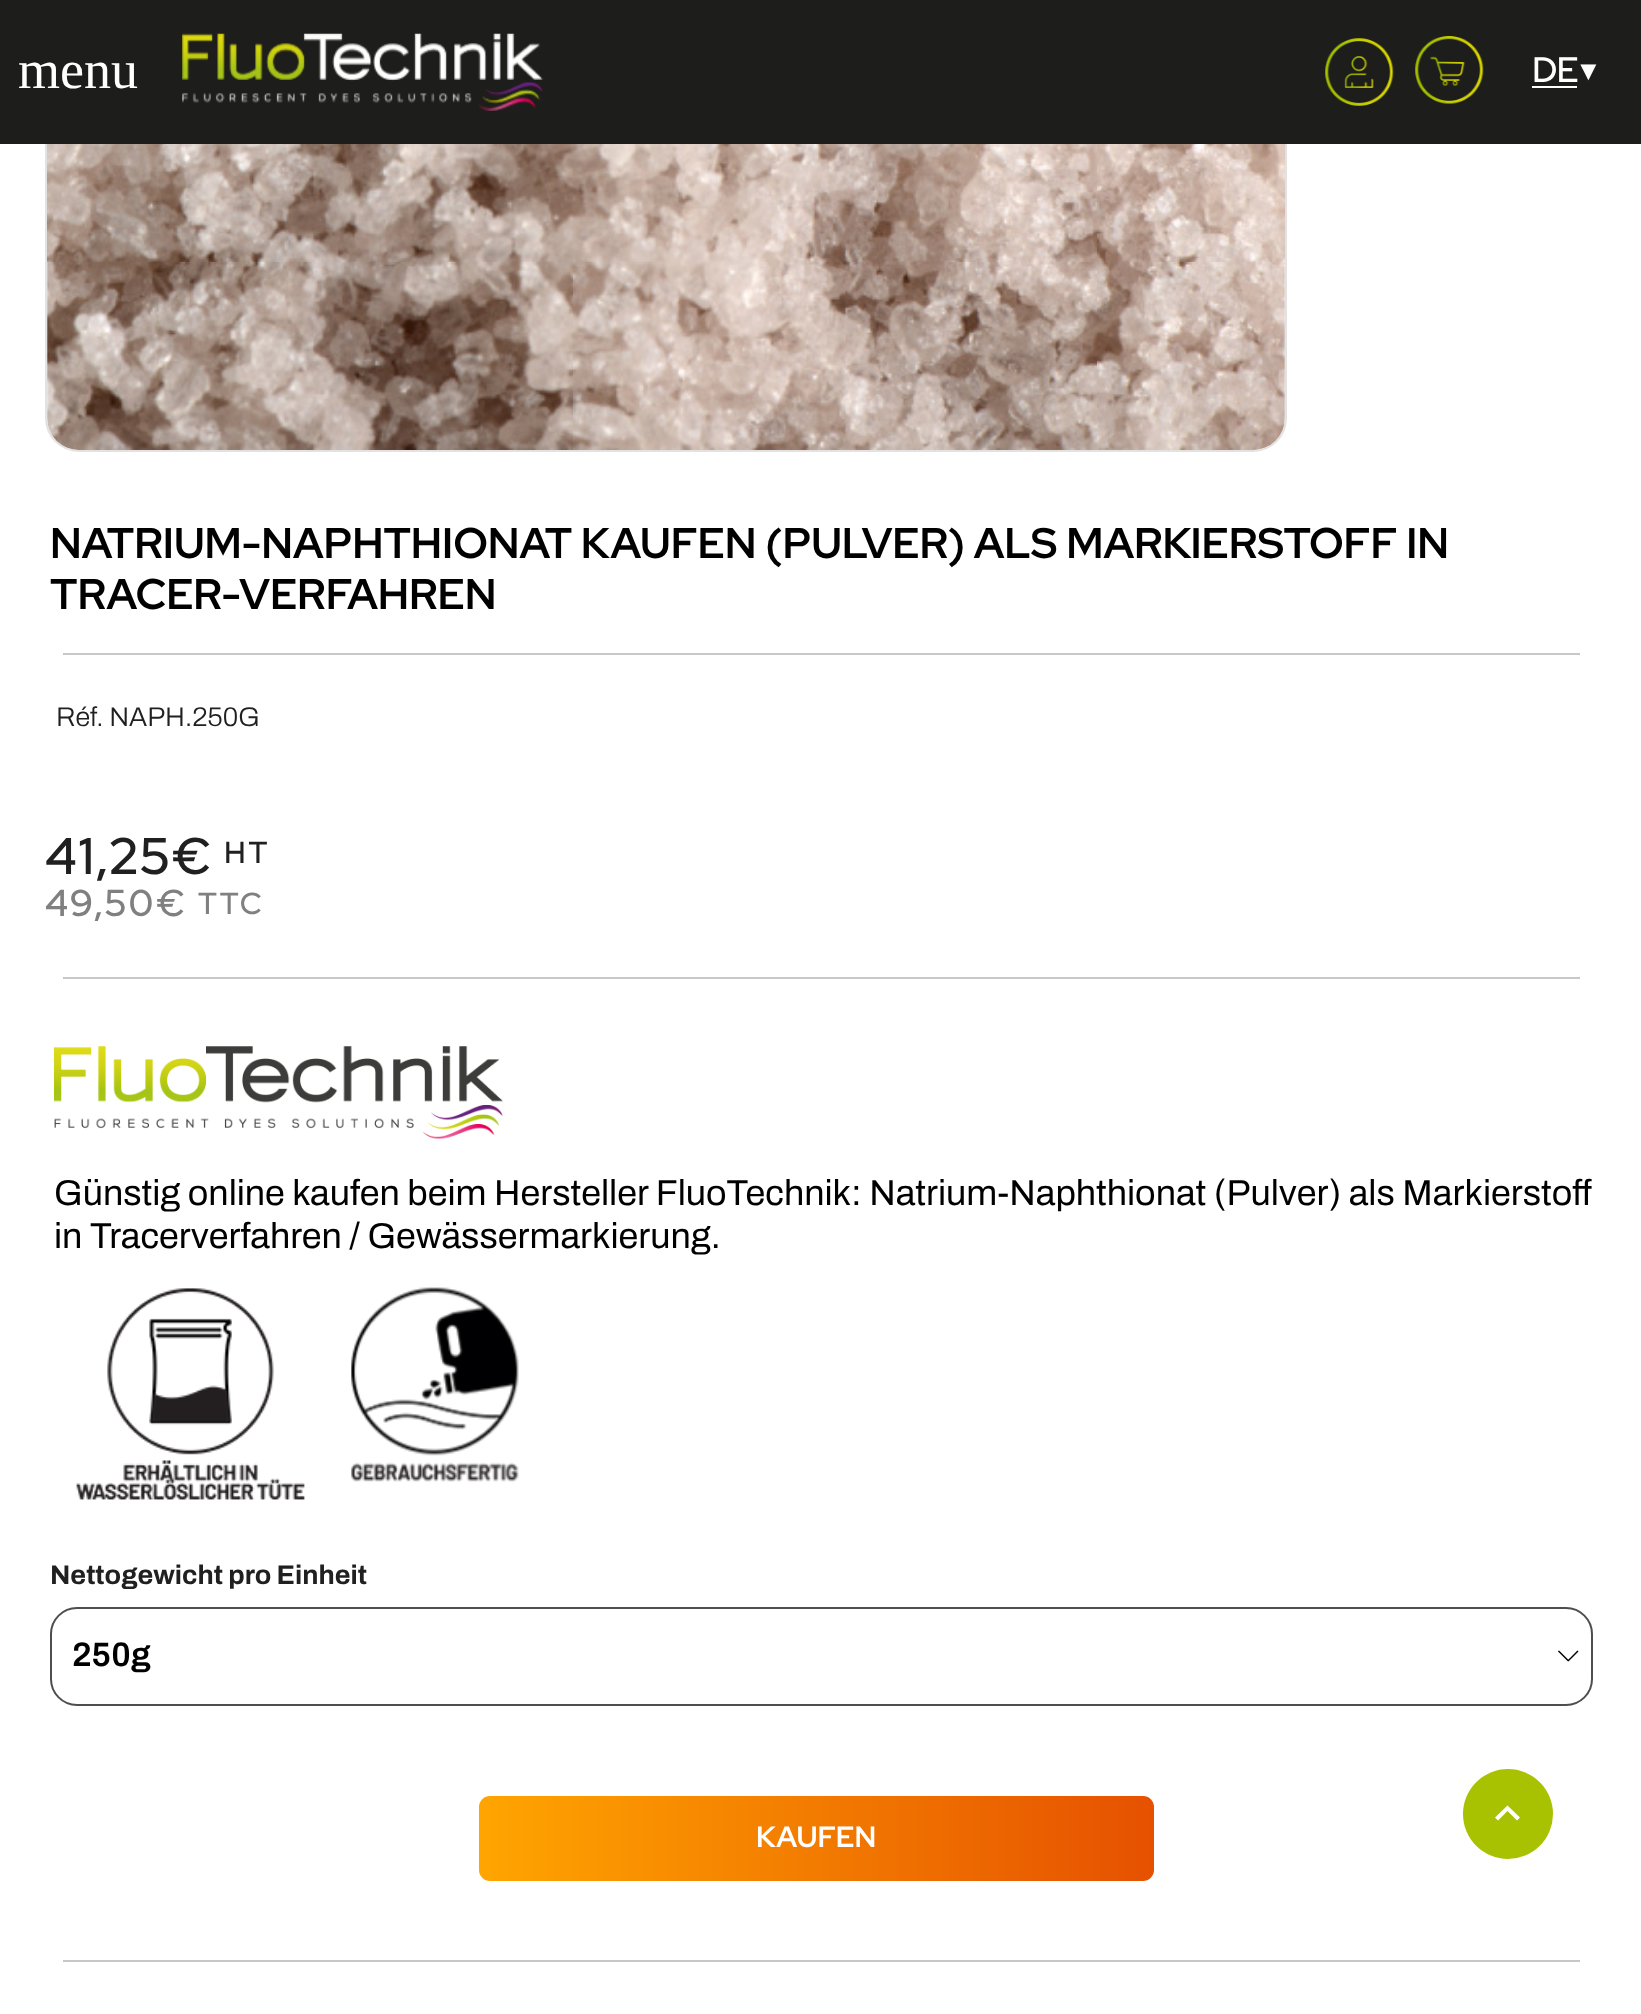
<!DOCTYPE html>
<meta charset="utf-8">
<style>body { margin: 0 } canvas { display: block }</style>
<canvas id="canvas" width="1641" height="2014"></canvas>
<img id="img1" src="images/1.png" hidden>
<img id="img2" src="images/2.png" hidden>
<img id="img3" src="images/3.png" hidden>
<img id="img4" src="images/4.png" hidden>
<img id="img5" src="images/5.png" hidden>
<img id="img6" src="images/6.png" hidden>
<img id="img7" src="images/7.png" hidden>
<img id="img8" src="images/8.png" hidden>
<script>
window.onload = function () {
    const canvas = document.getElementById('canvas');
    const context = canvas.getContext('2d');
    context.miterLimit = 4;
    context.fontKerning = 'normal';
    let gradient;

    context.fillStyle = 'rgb(255, 255, 255)';
    context.fillRect(0, 0, 1641, 2014);
    context.beginPath();
    context.roundRect(46, -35, 1240, 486, 33);
    context.strokeStyle = 'rgb(226, 226, 226)';
    context.lineWidth = 2;
    context.stroke();
    context.fillStyle = 'rgb(29, 29, 27)';
    context.fillRect(0, 0, 1641, 144);
    context.drawImage(document.getElementById('img1'), 182, 33, 361, 78);
    context.drawImage(document.getElementById('img2'), 1325, 38, 69, 68);
    context.drawImage(document.getElementById('img3'), 1415, 36, 69, 68);
    context.fillStyle = 'rgb(255, 255, 255)';
    context.fillRect(1532, 86, 45, 2);
    context.drawImage(document.getElementById('img4'), 47, 144, 1238, 306);
    context.fillStyle = 'rgb(199, 199, 199)';
    context.fillRect(63, 653, 1517, 2);
    context.fillRect(63, 977, 1517, 2);
    context.drawImage(document.getElementById('img5'), 54, 1046, 449, 93);
    context.drawImage(document.getElementById('img6'), 76, 1288, 229, 212);
    context.drawImage(document.getElementById('img7'), 351, 1287, 168, 195);
    context.drawImage(document.getElementById('img8'), 1558, 1650, 21, 12);
    context.beginPath();
    context.roundRect(51, 1608, 1541, 97, 26);
    context.strokeStyle = 'rgb(78, 78, 80)';
    context.stroke();
    gradient = context.createLinearGradient(479, 1838, 1154, 1838);
    gradient.addColorStop(0, 'rgb(255, 165, 0)');
    gradient.addColorStop(1, 'rgb(230, 81, 0)');
    context.fillStyle = gradient;
    context.beginPath();
    context.roundRect(479, 1796, 675, 85, 11);
    context.fill();
    context.fillStyle = 'rgb(199, 199, 199)';
    context.fillRect(63, 1960, 1517, 2);
    context.fillStyle = 'rgb(168, 194, 1)';
    context.beginPath();
    context.arc(1508, 1814, 45, 0, 2 * Math.PI);
    context.fill();
    context.fillStyle = 'rgb(255, 255, 255)';
    context.beginPath();
    context.moveTo(1498, 1820.5);
    context.lineTo(1495, 1817.5);
    context.lineTo(1507.5, 1805.5);
    context.lineTo(1520, 1817.5);
    context.lineTo(1517, 1820.5);
    context.lineTo(1507.5, 1811);
    context.closePath();
    context.fill();
    context.font = '54px Liberation Serif';
    context.fillText('menu', 18, 88);
    context.font = 'bold 34px "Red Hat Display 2"';
    context.fillText('DE', 1532, 82);
    context.font = '27px Liberation Sans';
    context.fillText('▼', 1575, 80);
    context.font = 'bold 42.75px Red Hat Display';
    context.fillStyle = 'rgb(0, 0, 0)';
    context.fillText('NATRIUM-NAPHTHIONAT KAUFEN (PULVER) ALS MARKIERSTOFF IN', 50, 558);
    context.fillText('TRACER-VERFAHREN', 50, 609);
    context.font = '300 27px Archivo';
    context.fillStyle = 'rgb(32, 32, 32)';
    context.fillText('Réf. NAPH.250G', 56, 726);
    context.letterSpacing = '3.5px';
    context.font = 'bold 49.5px "Red Hat Display 2"';
    context.fillText('41,25€', 45, 874);
    context.font = 'bold 29.25px "Red Hat Display 2"';
    context.fillText('HT', 224, 863);
    context.font = 'bold 36px "Red Hat Display 2"';
    context.fillStyle = 'rgb(128, 128, 128)';
    context.fillText('49,50€', 45, 916);
    context.font = 'bold 29.25px "Red Hat Display 2"';
    context.fillText('TTC', 198, 914);
    context.letterSpacing = '0px';
    context.font = '36px Archivo';
    context.fillStyle = 'rgb(0, 0, 0)';
    context.fillText('Günstig online kaufen beim Hersteller FluoTechnik: Natrium-Naphthionat (Pulver) als Markierstoff', 54, 1205);
    context.fillText('in Tracerverfahren / Gewässermarkierung.', 54, 1248);
    context.font = 'bold 27px Archivo';
    context.fillStyle = 'rgb(32, 32, 32)';
    context.fillText('Nettogewicht pro Einheit', 50, 1584);
    context.font = '600 34px Archivo';
    context.fillStyle = 'rgb(0, 0, 0)';
    context.fillText('250g', 72, 1666);
    context.font = 'bold 29.25px Red Hat Display';
    context.fillStyle = 'rgb(255, 255, 255)';
    context.fillText('KAUFEN', 756, 1847);
};
</script>
